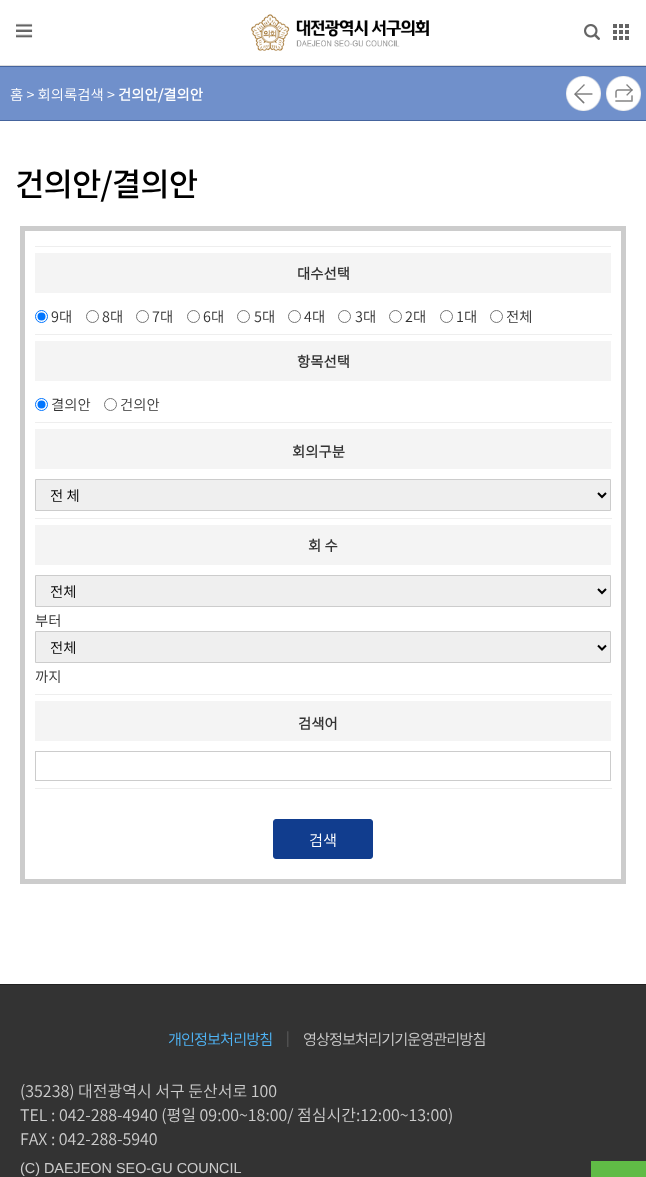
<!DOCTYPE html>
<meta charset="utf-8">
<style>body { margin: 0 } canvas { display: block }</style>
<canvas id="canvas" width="646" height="1177"></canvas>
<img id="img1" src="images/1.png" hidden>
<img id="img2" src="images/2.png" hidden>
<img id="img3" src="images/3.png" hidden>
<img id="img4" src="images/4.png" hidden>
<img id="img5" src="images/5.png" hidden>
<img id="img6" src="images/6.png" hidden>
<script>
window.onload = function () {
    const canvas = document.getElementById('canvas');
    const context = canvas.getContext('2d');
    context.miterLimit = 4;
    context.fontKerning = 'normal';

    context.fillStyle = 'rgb(255, 255, 255)';
    context.fillRect(0, 0, 646, 1177);
    context.fillStyle = 'rgb(221, 221, 221)';
    context.fillRect(0, 65, 646, 1);
    context.drawImage(document.getElementById('img1'), 251, 14, 178, 37);
    context.drawImage(document.getElementById('img2'), 16, 23, 17, 15);
    context.drawImage(document.getElementById('img3'), 584, 24, 16, 16);
    context.drawImage(document.getElementById('img4'), 613, 24, 16, 16);
    context.fillStyle = 'rgb(112, 144, 203)';
    context.fillRect(0, 67, 646, 53);
    context.fillStyle = 'rgb(69, 100, 157)';
    context.fillRect(0, 66, 646, 1);
    context.fillRect(0, 120, 646, 1);
    context.drawImage(document.getElementById('img5'), 566, 76, 35, 35);
    context.drawImage(document.getElementById('img6'), 606, 76, 35, 35);
    context.strokeStyle = 'rgb(204, 204, 204)';
    context.lineWidth = 5;
    context.strokeRect(22.5, 228.5, 601, 653);
    context.fillStyle = 'rgb(238, 238, 238)';
    context.fillRect(35, 246, 576, 1);
    context.fillRect(35, 334, 577, 1);
    context.fillStyle = 'rgb(244, 244, 244)';
    context.fillRect(35, 253, 576, 40);
    context.beginPath();
    context.arc(41.5, 316.5, 6, 0, 2 * Math.PI);
    context.strokeStyle = 'rgb(0, 117, 255)';
    context.lineWidth = 1;
    context.stroke();
    context.fillStyle = 'rgb(0, 117, 255)';
    context.beginPath();
    context.arc(41.5, 316.5, 4, 0, 2 * Math.PI);
    context.fill();
    context.beginPath();
    context.arc(92.5, 316.5, 6, 0, 2 * Math.PI);
    context.strokeStyle = 'rgb(118, 118, 118)';
    context.stroke();
    context.beginPath();
    context.arc(142.5, 316.5, 6, 0, 2 * Math.PI);
    context.stroke();
    context.beginPath();
    context.arc(193.5, 316.5, 6, 0, 2 * Math.PI);
    context.stroke();
    context.beginPath();
    context.arc(243.5, 316.5, 6, 0, 2 * Math.PI);
    context.stroke();
    context.beginPath();
    context.arc(294.5, 316.5, 6, 0, 2 * Math.PI);
    context.stroke();
    context.beginPath();
    context.arc(344.5, 316.5, 6, 0, 2 * Math.PI);
    context.stroke();
    context.beginPath();
    context.arc(395.5, 316.5, 6, 0, 2 * Math.PI);
    context.stroke();
    context.beginPath();
    context.arc(446.5, 316.5, 6, 0, 2 * Math.PI);
    context.stroke();
    context.beginPath();
    context.arc(496.5, 316.5, 6, 0, 2 * Math.PI);
    context.stroke();
    context.fillStyle = 'rgb(238, 238, 238)';
    context.fillRect(35, 422, 577, 1);
    context.fillStyle = 'rgb(244, 244, 244)';
    context.fillRect(35, 341, 576, 40);
    context.beginPath();
    context.arc(41.5, 404.5, 6, 0, 2 * Math.PI);
    context.strokeStyle = 'rgb(0, 117, 255)';
    context.stroke();
    context.fillStyle = 'rgb(0, 117, 255)';
    context.beginPath();
    context.arc(41.5, 404.5, 4, 0, 2 * Math.PI);
    context.fill();
    context.beginPath();
    context.arc(110.5, 404.5, 6, 0, 2 * Math.PI);
    context.strokeStyle = 'rgb(118, 118, 118)';
    context.stroke();
    context.fillStyle = 'rgb(238, 238, 238)';
    context.fillRect(35, 518, 577, 1);
    context.fillStyle = 'rgb(244, 244, 244)';
    context.fillRect(35, 429, 576, 40);
    context.fillStyle = 'rgb(239, 239, 239)';
    context.beginPath();
    context.rect(35.5, 479.5, 575, 31);
    context.fill();
    context.strokeStyle = 'rgb(204, 204, 204)';
    context.stroke();
    context.beginPath();
    context.moveTo(598, 493);
    context.lineTo(602, 497);
    context.lineTo(606, 493);
    context.strokeStyle = 'rgb(0, 0, 0)';
    context.lineWidth = 2;
    context.stroke();
    context.fillStyle = 'rgb(238, 238, 238)';
    context.fillRect(35, 694, 577, 1);
    context.fillStyle = 'rgb(244, 244, 244)';
    context.fillRect(35, 525, 576, 40);
    context.fillStyle = 'rgb(239, 239, 239)';
    context.beginPath();
    context.rect(35.5, 575.5, 575, 31);
    context.fill();
    context.strokeStyle = 'rgb(204, 204, 204)';
    context.lineWidth = 1;
    context.stroke();
    context.beginPath();
    context.moveTo(598, 589);
    context.lineTo(602, 593);
    context.lineTo(606, 589);
    context.strokeStyle = 'rgb(0, 0, 0)';
    context.lineWidth = 2;
    context.stroke();
    context.beginPath();
    context.rect(35.5, 631.5, 575, 31);
    context.fill();
    context.strokeStyle = 'rgb(204, 204, 204)';
    context.lineWidth = 1;
    context.stroke();
    context.beginPath();
    context.moveTo(598, 645.5);
    context.lineTo(602, 649.5);
    context.lineTo(606, 645.5);
    context.strokeStyle = 'rgb(0, 0, 0)';
    context.lineWidth = 2;
    context.stroke();
    context.fillStyle = 'rgb(238, 238, 238)';
    context.fillRect(35, 788, 577, 1);
    context.fillStyle = 'rgb(244, 244, 244)';
    context.fillRect(35, 701, 576, 40);
    context.strokeStyle = 'rgb(204, 204, 204)';
    context.lineWidth = 1;
    context.strokeRect(35.5, 751.5, 575, 29);
    context.fillStyle = 'rgb(17, 61, 142)';
    context.beginPath();
    context.roundRect(273.5, 819.5, 99, 39, 2.5);
    context.fill();
    context.strokeStyle = 'rgb(17, 61, 142)';
    context.stroke();
    context.fillStyle = 'rgb(51, 51, 51)';
    context.fillRect(0, 985, 646, 192);
    context.fillStyle = 'rgb(34, 34, 34)';
    context.fillRect(0, 984, 646, 1);
    context.fillStyle = 'rgb(96, 187, 70)';
    context.fillRect(591, 1161, 55, 16);
    context.font = '300 14.4px Noto Sans KR';
    context.fillStyle = 'rgb(255, 255, 255)';
    context.fillText('홈 > 회의록검색 >', 10, 100);
    context.font = 'bold 14.4px Noto Sans KR';
    context.fillText('건의안/결의안', 118, 100);
    context.letterSpacing = '-1px';
    context.font = '500 32px Noto Sans KR';
    context.fillStyle = 'rgb(0, 0, 0)';
    context.fillText('건의안/결의안', 15, 196);
    context.letterSpacing = '0px';
    context.font = 'bold 14.4px Noto Sans KR';
    context.fillStyle = 'rgb(51, 51, 51)';
    context.fillText('대수선택', 297, 279);
    context.font = '300 14.4px Noto Sans KR';
    context.fillText('9대', 51, 322);
    context.fillText('8대', 102, 322);
    context.fillText('7대', 152, 322);
    context.fillText('6대', 203, 322);
    context.fillText('5대', 254, 322);
    context.fillText('4대', 304, 322);
    context.fillText('3대', 355, 322);
    context.fillText('2대', 405, 322);
    context.fillText('1대', 456, 322);
    context.fillText('전체', 506, 322);
    context.font = 'bold 14.4px Noto Sans KR';
    context.fillText('항목선택', 297, 367);
    context.font = '300 14.4px Noto Sans KR';
    context.fillText('결의안', 51, 410);
    context.fillText('건의안', 120, 410);
    context.font = 'bold 14.4px Noto Sans KR';
    context.fillText('회의구분', 292, 457);
    context.font = '300 14.4px Noto Sans KR';
    context.fillStyle = 'rgb(0, 0, 0)';
    context.fillText('전 체', 50, 501);
    context.font = 'bold 14.4px Noto Sans KR';
    context.fillStyle = 'rgb(51, 51, 51)';
    context.fillText('회 수', 308, 551);
    context.font = '300 14.4px Noto Sans KR';
    context.fillStyle = 'rgb(0, 0, 0)';
    context.fillText('전체', 50, 597);
    context.fillStyle = 'rgb(51, 51, 51)';
    context.fillText('부터', 35, 626);
    context.fillStyle = 'rgb(0, 0, 0)';
    context.fillText('전체', 50, 653);
    context.fillStyle = 'rgb(51, 51, 51)';
    context.fillText('까지', 35, 682);
    context.font = 'bold 14.4px Noto Sans KR';
    context.fillText('검색어', 298, 729);
    context.font = '300 15.25px Noto Sans KR';
    context.fillStyle = 'rgb(255, 255, 255)';
    context.fillText('검색', 309, 846);
    context.letterSpacing = '-1px';
    context.fillStyle = 'rgb(79, 181, 247)';
    context.fillText('개인정보처리방침', 168, 1045);
    context.font = '300 14px Noto Sans KR';
    context.fillStyle = 'rgb(102, 102, 102)';
    context.fillText('|', 286, 1043);
    context.font = '300 15.25px Noto Sans KR';
    context.fillStyle = 'rgb(204, 204, 204)';
    context.fillText('영상정보처리기기운영관리방침', 303, 1045);
    context.letterSpacing = '0px';
    context.font = '300 16px Noto Sans KR';
    context.fillText('(35238) 대전광역시 서구 둔산서로 100', 20, 1097);
    context.fillText('TEL : 042-288-4940 (평일 09:00~18:00/ 점심시간:12:00~13:00)', 20, 1121);
    context.fillText('FAX : 042-288-5940', 20, 1145);
    context.font = '14.4px Liberation Sans';
    context.fillText('(C) DAEJEON SEO-GU COUNCIL', 20, 1173);
};
</script>
